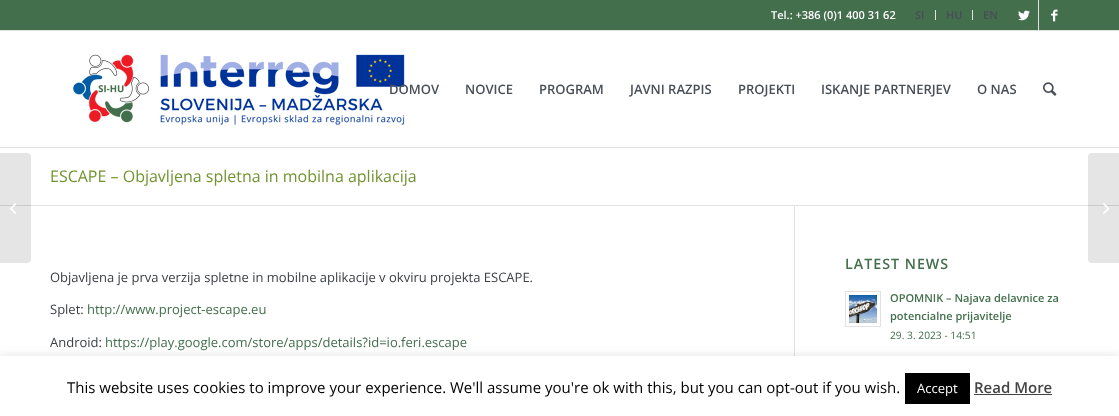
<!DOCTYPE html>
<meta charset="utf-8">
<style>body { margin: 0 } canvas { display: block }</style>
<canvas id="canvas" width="1119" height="416"></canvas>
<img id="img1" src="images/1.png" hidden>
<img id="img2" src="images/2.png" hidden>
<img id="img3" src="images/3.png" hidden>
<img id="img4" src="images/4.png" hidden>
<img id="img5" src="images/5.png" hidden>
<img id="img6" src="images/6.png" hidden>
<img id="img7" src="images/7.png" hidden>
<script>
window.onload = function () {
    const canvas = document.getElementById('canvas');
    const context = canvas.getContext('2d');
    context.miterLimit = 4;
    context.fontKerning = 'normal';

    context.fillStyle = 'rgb(255, 255, 255)';
    context.fillRect(0, 0, 1119, 416);
    context.fillStyle = 'rgb(67, 111, 77)';
    context.fillRect(0, 0, 1119, 30);
    context.fillStyle = 'rgb(225, 225, 225)';
    context.fillRect(0, 30, 1119, 1);
    context.fillRect(935, 10, 1, 10);
    context.fillRect(972, 10, 1, 10);
    context.fillRect(1038, 0, 1, 30);
    context.drawImage(document.getElementById('img1'), 1018, 10, 12, 11);
    context.drawImage(document.getElementById('img2'), 1051, 9, 7, 13);
    context.fillRect(0, 147, 1119, 1);
    context.drawImage(document.getElementById('img3'), 73, 54, 332, 71);
    context.drawImage(document.getElementById('img4'), 1043, 82, 14, 14);
    context.fillRect(0, 205, 1119, 1);
    context.fillStyle = 'rgba(0, 0, 0, 0.1)';
    context.beginPath();
    context.roundRect(0, 153, 31, 110, [0, 4, 4, 0]);
    context.fill();
    context.drawImage(document.getElementById('img5'), 10, 203, 7, 11);
    context.fillStyle = 'rgb(225, 225, 225)';
    context.fillRect(794, 206, 1, 150);
    context.strokeStyle = 'rgb(225, 225, 225)';
    context.strokeRect(845.5, 291.5, 35, 35);
    context.drawImage(document.getElementById('img6'), 849, 295, 28, 28);
    context.fillStyle = 'rgba(0, 0, 0, 0.1)';
    context.beginPath();
    context.roundRect(1088, 153, 31, 110, [4, 0, 0, 4]);
    context.fill();
    context.drawImage(document.getElementById('img7'), 1103, 203, 7, 11);
    context.fillStyle = 'rgba(172, 171, 171, 0.3)';
    context.filter = 'blur(5px)';
    context.beginPath();
    context.rect(0, 355, 1119, 60);
    context.fill();
    context.filter = 'none';
    context.fillStyle = 'rgb(255, 255, 255)';
    context.fillRect(0, 356, 1119, 60);
    context.fillStyle = 'rgb(0, 0, 0)';
    context.fillRect(905, 373, 65, 31);
    context.fillStyle = 'rgb(68, 68, 68)';
    context.fillRect(974, 394, 78, 1);
    context.font = '600 11px Open Sans';
    context.fillStyle = 'rgb(255, 255, 255)';
    context.fillText('Tel.: +386 (0)1 400 31 62', 771, 19);
    context.fillStyle = 'rgb(73, 78, 87)';
    context.fillText('SI', 915, 19);
    context.fillText('HU', 946, 19);
    context.fillText('EN', 983, 19);
    context.font = '600 13px Open Sans';
    context.fillText('DOMOV', 389, 94);
    context.fillText('NOVICE', 465, 94);
    context.fillText('PROGRAM', 539, 94);
    context.fillText('JAVNI RAZPIS', 630, 94);
    context.fillText('PROJEKTI', 738, 94);
    context.fillText('ISKANJE PARTNERJEV', 821, 94);
    context.fillText('O NAS', 977, 94);
    context.font = '16px Open Sans';
    context.fillStyle = 'rgb(113, 148, 48)';
    context.fillText('ESCAPE – Objavljena spletna in mobilna aplikacija', 50, 182);
    context.font = '13px Open Sans';
    context.fillStyle = 'rgb(61, 64, 69)';
    context.fillText('Objavljena je prva verzija spletne in mobilne aplikacije v okviru projekta ESCAPE.', 50, 282);
    context.fillText('Splet:', 50, 314);
    context.fillStyle = 'rgb(67, 111, 77)';
    context.fillText('http://www.project-escape.eu', 87, 314);
    context.fillStyle = 'rgb(61, 64, 69)';
    context.fillText('Android:', 50, 347);
    context.fillStyle = 'rgb(67, 111, 77)';
    context.fillText('https://play.google.com/store/apps/details?id=io.feri.escape', 105, 347);
    context.letterSpacing = '1px';
    context.font = '600 14.25px Open Sans';
    context.fillText('LATEST NEWS', 845, 269);
    context.letterSpacing = '0px';
    context.font = '600 11px Open Sans';
    context.fillText('OPOMNIK – Najava delavnice za', 890, 302);
    context.fillText('potencialne prijavitelje', 890, 320);
    context.font = '10.25px Open Sans';
    context.fillText('29. 3. 2023 - 14:51', 890, 339);
    context.font = '15px Open Sans';
    context.fillStyle = 'rgb(0, 0, 0)';
    context.fillText('This website uses cookies to improve your experience. We\'ll assume you\'re ok with this, but you can opt-out if you wish.', 67, 393);
    context.font = '13px Open Sans';
    context.fillStyle = 'rgb(255, 255, 255)';
    context.fillText('Accept', 917, 393);
    context.font = '600 15px Open Sans';
    context.fillStyle = 'rgb(68, 68, 68)';
    context.fillText('Read More', 974, 393);
};
</script>
